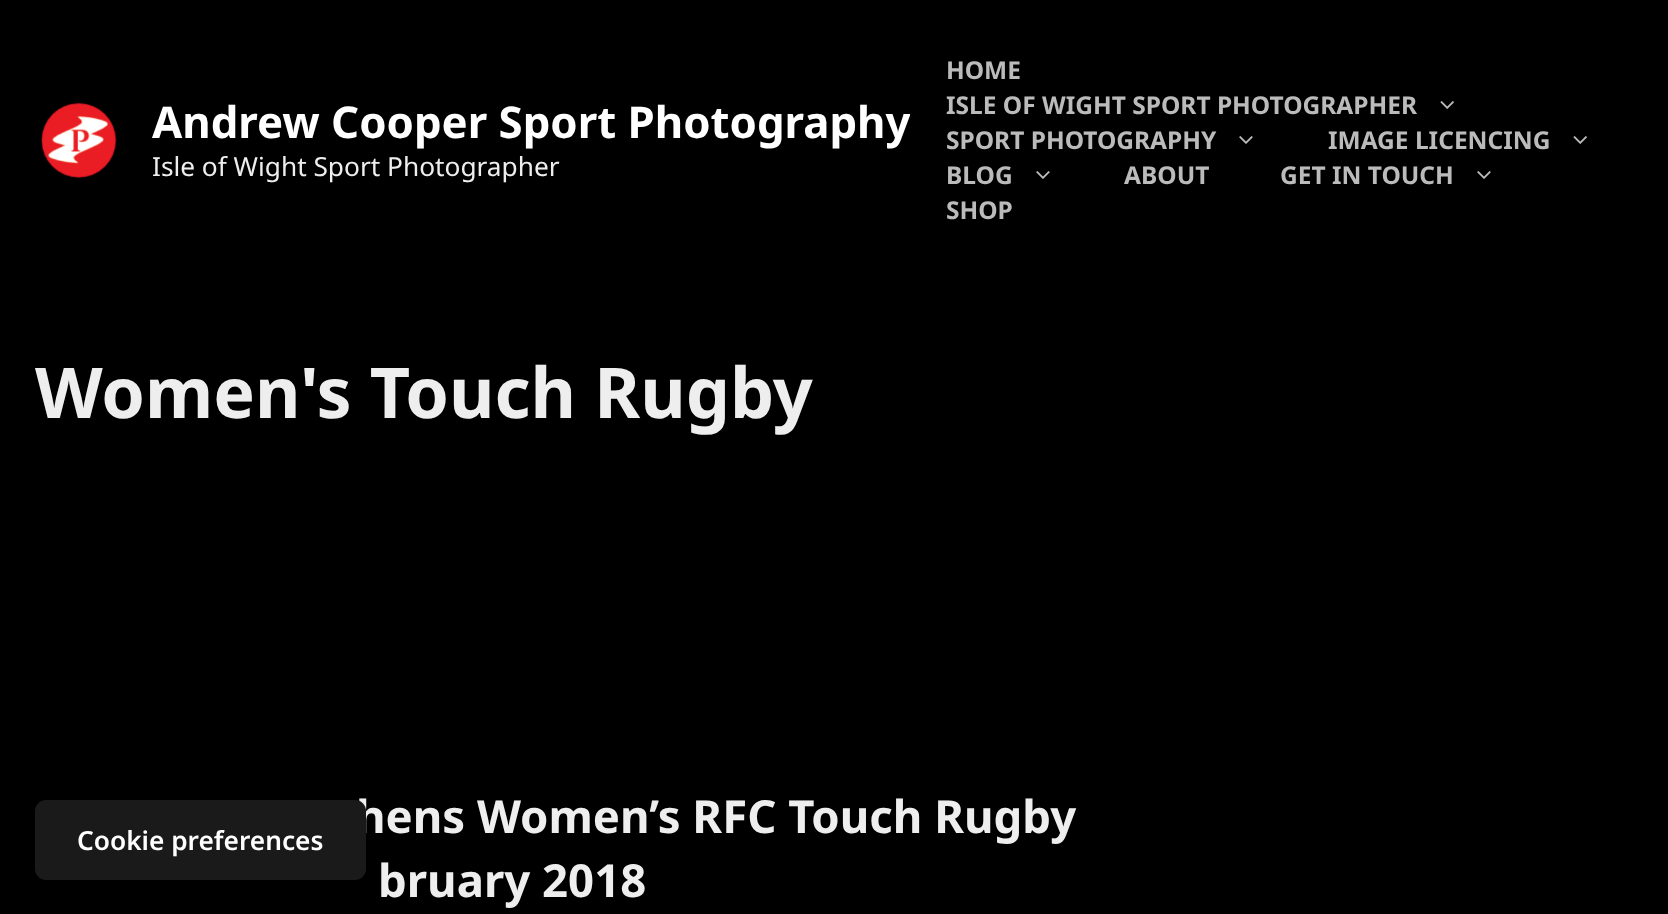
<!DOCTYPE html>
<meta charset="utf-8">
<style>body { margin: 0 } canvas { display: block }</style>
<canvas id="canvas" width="1668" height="914"></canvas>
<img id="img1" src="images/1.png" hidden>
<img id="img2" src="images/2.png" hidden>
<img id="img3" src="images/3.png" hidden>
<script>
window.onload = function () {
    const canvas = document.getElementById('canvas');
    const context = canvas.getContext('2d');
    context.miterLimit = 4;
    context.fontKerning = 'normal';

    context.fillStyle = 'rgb(0, 0, 0)';
    context.fillRect(0, 0, 1668, 914);
    context.drawImage(document.getElementById('img1'), 41, 102, 76, 76);
    context.drawImage(document.getElementById('img2'), 1440, 101, 14, 8);
    context.drawImage(document.getElementById('img3'), 1239, 136, 14, 8);
    context.drawImage(document.getElementById('img2'), 1573, 136, 14, 8);
    context.drawImage(document.getElementById('img3'), 1036, 171, 14, 8);
    context.drawImage(document.getElementById('img3'), 1477, 171, 14, 8);
    context.font = 'bold 43.75px Noto Sans';
    context.fillStyle = 'rgb(255, 255, 255)';
    context.fillText('Andrew Cooper Sport Photography', 152, 138);
    context.font = '26.25px Noto Sans';
    context.fillStyle = 'rgb(238, 238, 238)';
    context.fillText('Isle of Wight Sport Photographer', 152, 176);
    context.fillStyle = 'rgb(0, 0, 0)';
    context.fillRect(910, 114, 1, 2);
    context.font = 'bold 24.5px Noto Sans';
    context.fillStyle = 'rgb(187, 187, 187)';
    context.fillText('HOME', 946, 79);
    context.fillText('ISLE OF WIGHT SPORT PHOTOGRAPHER', 946, 114);
    context.fillText('SPORT PHOTOGRAPHY', 946, 149);
    context.fillText('IMAGE LICENCING', 1328, 149);
    context.fillText('BLOG', 946, 184);
    context.fillText('ABOUT', 1124, 184);
    context.fillText('GET IN TOUCH', 1280, 184);
    context.fillText('SHOP', 946, 219);
    context.font = 'bold 70px Noto Sans';
    context.fillStyle = 'rgb(238, 238, 238)';
    context.fillText('Women\'s Touch Rugby', 35, 418);
    context.font = 'bold 45.5px Noto Sans';
    context.fillText('hens Women’s RFC Touch Rugby', 356, 833);
    context.fillStyle = 'rgb(26, 26, 26)';
    context.beginPath();
    context.roundRect(35, 800, 331, 80, 11);
    context.fill();
    context.font = '600 26.25px Noto Sans';
    context.fillStyle = 'rgb(255, 255, 255)';
    context.fillText('Cookie preferences', 77, 850);
    context.font = 'bold 45.5px Noto Sans';
    context.fillStyle = 'rgb(238, 238, 238)';
    context.fillText('bruary 2018', 378, 897);
};
</script>
